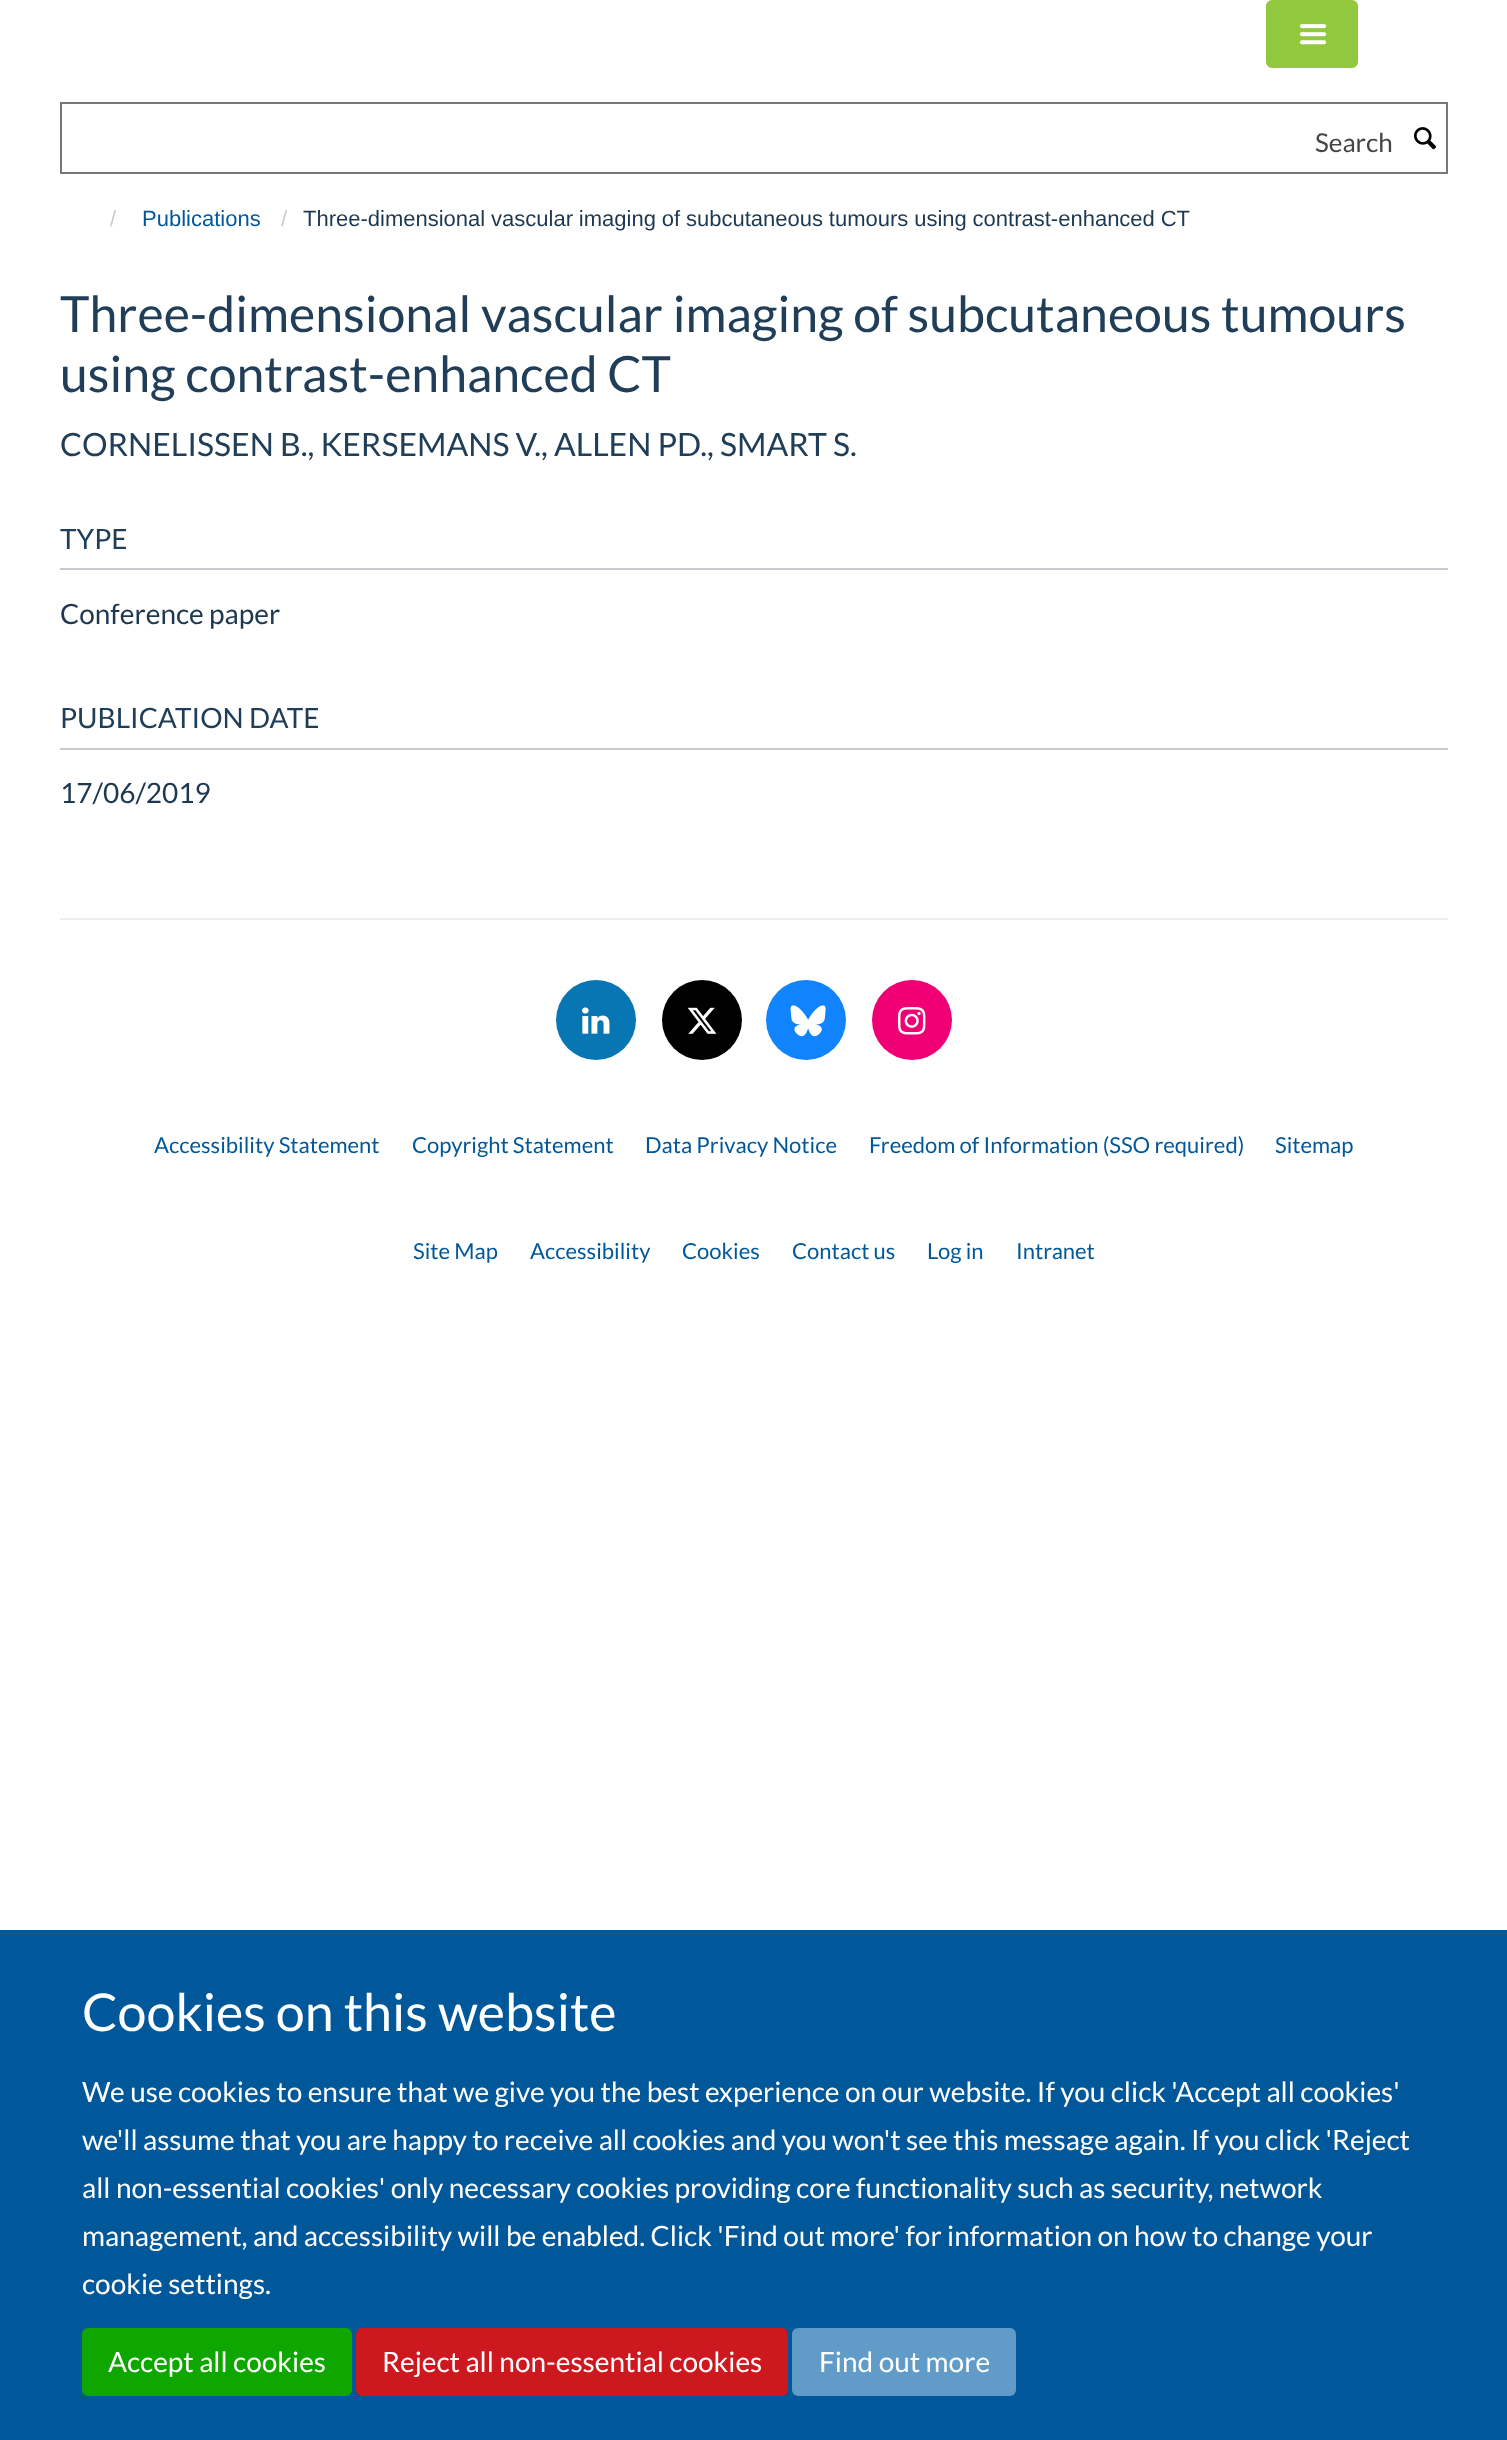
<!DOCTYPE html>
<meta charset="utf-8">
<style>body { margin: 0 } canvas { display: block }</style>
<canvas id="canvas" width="1507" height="2440"></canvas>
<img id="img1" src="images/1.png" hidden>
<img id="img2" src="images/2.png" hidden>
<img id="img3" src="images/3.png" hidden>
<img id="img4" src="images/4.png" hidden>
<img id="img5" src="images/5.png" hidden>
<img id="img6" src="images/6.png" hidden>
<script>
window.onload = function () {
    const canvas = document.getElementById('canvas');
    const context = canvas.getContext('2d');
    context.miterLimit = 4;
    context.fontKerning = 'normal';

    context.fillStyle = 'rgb(255, 255, 255)';
    context.fillRect(0, 0, 1507, 2440);
    context.fillStyle = 'rgb(146, 200, 62)';
    context.beginPath();
    context.roundRect(1267, 1, 90, 66, 5);
    context.fill();
    context.strokeStyle = 'rgb(146, 200, 62)';
    context.lineWidth = 2;
    context.stroke();
    context.drawImage(document.getElementById('img1'), 1299, 24, 28, 21);
    context.strokeStyle = 'rgb(119, 119, 119)';
    context.strokeRect(61, 103, 1386, 70);
    context.drawImage(document.getElementById('img2'), 1414, 127, 23, 23);
    context.fillStyle = 'rgb(198, 202, 207)';
    context.fillRect(60, 568, 1388, 2);
    context.fillRect(60, 748, 1388, 2);
    context.fillStyle = 'rgb(238, 238, 238)';
    context.fillRect(60, 918, 1388, 2);
    context.fillStyle = 'rgb(9, 118, 180)';
    context.beginPath();
    context.arc(596, 1020, 40, 0, 2 * Math.PI);
    context.fill();
    context.drawImage(document.getElementById('img3'), 582, 1007, 28, 27);
    context.fillStyle = 'rgb(0, 0, 0)';
    context.beginPath();
    context.arc(702, 1020, 40, 0, 2 * Math.PI);
    context.fill();
    context.drawImage(document.getElementById('img4'), 687, 1007, 30, 27);
    context.fillStyle = 'rgb(17, 131, 252)';
    context.beginPath();
    context.arc(806, 1020, 40, 0, 2 * Math.PI);
    context.fill();
    context.drawImage(document.getElementById('img5'), 790, 1005, 36, 32);
    context.fillStyle = 'rgb(239, 0, 116)';
    context.beginPath();
    context.arc(912, 1020, 40, 0, 2 * Math.PI);
    context.fill();
    context.drawImage(document.getElementById('img6'), 898, 1007, 28, 28);
    context.fillStyle = 'rgb(0, 88, 155)';
    context.fillRect(0, 1930, 1507, 510);
    context.fillStyle = 'rgb(15, 166, 0)';
    context.beginPath();
    context.roundRect(83, 2329, 268, 66, 5);
    context.fill();
    context.strokeStyle = 'rgb(15, 166, 0)';
    context.stroke();
    context.fillStyle = 'rgb(204, 24, 30)';
    context.beginPath();
    context.roundRect(357, 2329, 430, 66, 5);
    context.fill();
    context.strokeStyle = 'rgb(204, 24, 30)';
    context.stroke();
    context.fillStyle = 'rgb(97, 155, 199)';
    context.beginPath();
    context.roundRect(793, 2329, 222, 66, 5);
    context.fill();
    context.strokeStyle = 'rgb(97, 155, 199)';
    context.stroke();
    context.font = '26px Lato';
    context.fillStyle = 'rgb(68, 68, 68)';
    context.fillText('Search', 1315, 152);
    context.font = '22px Liberation Sans';
    context.fillStyle = 'rgb(204, 204, 204)';
    context.fillText('/', 110, 226);
    context.fillStyle = 'rgb(0, 88, 155)';
    context.fillText('Publications', 142, 226);
    context.fillStyle = 'rgb(204, 204, 204)';
    context.fillText('/', 281, 226);
    context.wordSpacing = '-0.25px';
    context.fillStyle = 'rgb(29, 56, 80)';
    context.fillText('Three-dimensional vascular imaging of subcutaneous tumours using contrast-enhanced CT', 303, 226);
    context.wordSpacing = '0px';
    context.font = '50px Lato';
    context.fillStyle = 'rgb(32, 62, 88)';
    context.fillText('Three-dimensional vascular imaging of subcutaneous tumours', 60, 332);
    context.fillText('using contrast-enhanced CT', 60, 392);
    context.font = '32px Lato';
    context.fillText('CORNELISSEN B., KERSEMANS V., ALLEN PD., SMART S.', 60, 456);
    context.font = '28px Lato';
    context.fillText('TYPE', 60, 549);
    context.fillStyle = 'rgb(29, 56, 80)';
    context.fillText('Conference paper', 60, 624);
    context.fillStyle = 'rgb(32, 62, 88)';
    context.fillText('PUBLICATION DATE', 60, 728);
    context.fillStyle = 'rgb(29, 56, 80)';
    context.fillText('17/06/2019', 60, 803);
    context.font = '22px Lato';
    context.fillStyle = 'rgb(0, 88, 155)';
    context.fillText('Accessibility Statement', 154, 1153);
    context.fillText('Copyright Statement', 412, 1153);
    context.fillText('Data Privacy Notice', 645, 1153);
    context.fillText('Freedom of Information (SSO required)', 869, 1153);
    context.fillText('Sitemap', 1275, 1153);
    context.fillText('Site Map', 413, 1259);
    context.fillText('Accessibility', 530, 1259);
    context.fillText('Cookies', 682, 1259);
    context.fillText('Contact us', 792, 1259);
    context.fillText('Log in', 927, 1259);
    context.fillText('Intranet', 1016, 1259);
    context.font = '52px Lato';
    context.fillStyle = 'rgb(255, 255, 255)';
    context.fillText('Cookies on this website', 82, 2031);
    context.font = '28px Lato';
    context.fillText('We use cookies to ensure that we give you the best experience on our website. If you click \'Accept all cookies\'', 82, 2102);
    context.fillText('we\'ll assume that you are happy to receive all cookies and you won\'t see this message again. If you click \'Reject', 82, 2150);
    context.fillText('all non-essential cookies\' only necessary cookies providing core functionality such as security, network', 82, 2198);
    context.fillText('management, and accessibility will be enabled. Click \'Find out more\' for information on how to change your', 82, 2246);
    context.fillText('cookie settings.', 82, 2294);
    context.fillText('Accept all cookies', 108, 2372);
    context.fillText('Reject all non-essential cookies', 382, 2372);
    context.fillText('Find out more', 819, 2372);
};
</script>
